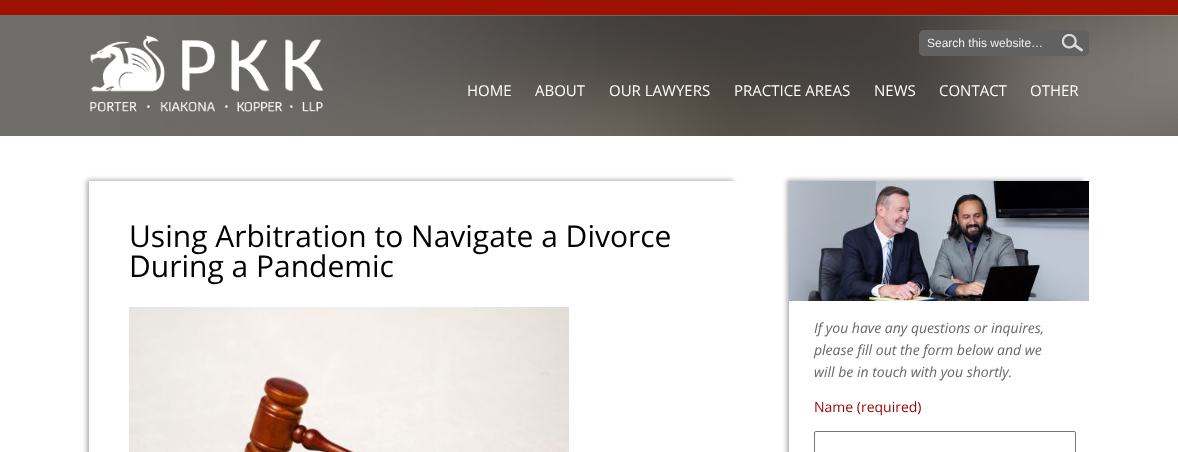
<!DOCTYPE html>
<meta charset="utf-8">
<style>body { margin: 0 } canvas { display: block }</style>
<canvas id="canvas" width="1178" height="452"></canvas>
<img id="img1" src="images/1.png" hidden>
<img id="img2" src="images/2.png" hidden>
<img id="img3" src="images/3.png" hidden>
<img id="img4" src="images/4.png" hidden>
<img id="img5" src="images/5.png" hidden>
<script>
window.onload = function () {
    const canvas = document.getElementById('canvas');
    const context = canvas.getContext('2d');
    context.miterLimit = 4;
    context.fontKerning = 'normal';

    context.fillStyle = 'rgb(255, 255, 255)';
    context.fillRect(0, 0, 1178, 452);
    context.fillStyle = 'rgb(158, 16, 0)';
    context.fillRect(0, 0, 1178, 15);
    context.fillStyle = 'rgb(112, 110, 107)';
    context.fillRect(0, 15, 120, 121);
    context.drawImage(document.getElementById('img1'), 120, 15, 1058, 121);
    context.drawImage(document.getElementById('img2'), 90, 35, 234, 77);
    context.fillStyle = 'rgb(97, 97, 97)';
    context.beginPath();
    context.roundRect(919, 30, 170, 26, 5);
    context.fill();
    context.drawImage(document.getElementById('img3'), 1061, 34, 27, 21);
    context.beginPath();
    context.roundRect(919.5, 30.5, 169, 25, 4.5);
    context.strokeStyle = 'rgb(97, 97, 97)';
    context.stroke();
    context.save();
    context.beginPath();
    context.moveTo(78, 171);
    context.lineTo(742, 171);
    context.lineTo(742, 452);
    context.lineTo(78, 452);
    context.closePath();
    context.moveTo(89, 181);
    context.lineTo(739, 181);
    context.lineTo(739, 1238);
    context.lineTo(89, 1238);
    context.closePath();
    context.clip('evenodd');
    context.fillStyle = 'rgb(168, 168, 168)';
    context.filter = 'blur(2.5px)';
    context.beginPath();
    context.rect(87, 180, 646, 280);
    context.fill();
    context.filter = 'none';
    context.restore();
    context.drawImage(document.getElementById('img4'), 129, 307, 440, 145);
    context.save();
    context.beginPath();
    context.moveTo(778, 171);
    context.lineTo(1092, 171);
    context.lineTo(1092, 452);
    context.lineTo(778, 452);
    context.closePath();
    context.moveTo(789, 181);
    context.lineTo(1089, 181);
    context.lineTo(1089, 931);
    context.lineTo(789, 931);
    context.closePath();
    context.clip('evenodd');
    context.fillStyle = 'rgb(168, 168, 168)';
    context.filter = 'blur(2.5px)';
    context.beginPath();
    context.rect(787, 180, 296, 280);
    context.fill();
    context.filter = 'none';
    context.restore();
    context.drawImage(document.getElementById('img5'), 789, 181, 300, 120);
    context.beginPath();
    context.roundRect(814.5, 431.5, 261, 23, 1.5);
    context.strokeStyle = 'rgb(118, 118, 118)';
    context.stroke();
    context.font = '12px Liberation Sans';
    context.fillStyle = 'rgb(240, 240, 240)';
    context.fillText('Search this website…', 927, 47);
    context.font = '15px Open Sans';
    context.fillStyle = 'rgb(255, 255, 255)';
    context.fillText('HOME', 467, 96);
    context.fillText('ABOUT', 535, 96);
    context.fillText('OUR LAWYERS', 609, 96);
    context.fillText('PRACTICE AREAS', 734, 96);
    context.fillText('NEWS', 874, 96);
    context.fillText('CONTACT', 939, 96);
    context.fillText('OTHER', 1030, 96);
    context.font = '30px Open Sans';
    context.fillStyle = 'rgb(0, 0, 0)';
    context.fillText('Using Arbitration to Navigate a Divorce', 129, 247);
    context.fillText('During a Pandemic', 129, 277);
    context.font = 'italic 14px Open Sans';
    context.fillStyle = 'rgb(102, 102, 102)';
    context.fillText('If you have any questions or inquires,', 814, 333);
    context.fillText('please fill out the form below and we', 814, 355);
    context.fillText('will be in touch with you shortly.', 814, 377);
    context.font = '14px Open Sans';
    context.fillStyle = 'rgb(153, 0, 0)';
    context.fillText('Name (required)', 814, 412);
};
</script>
